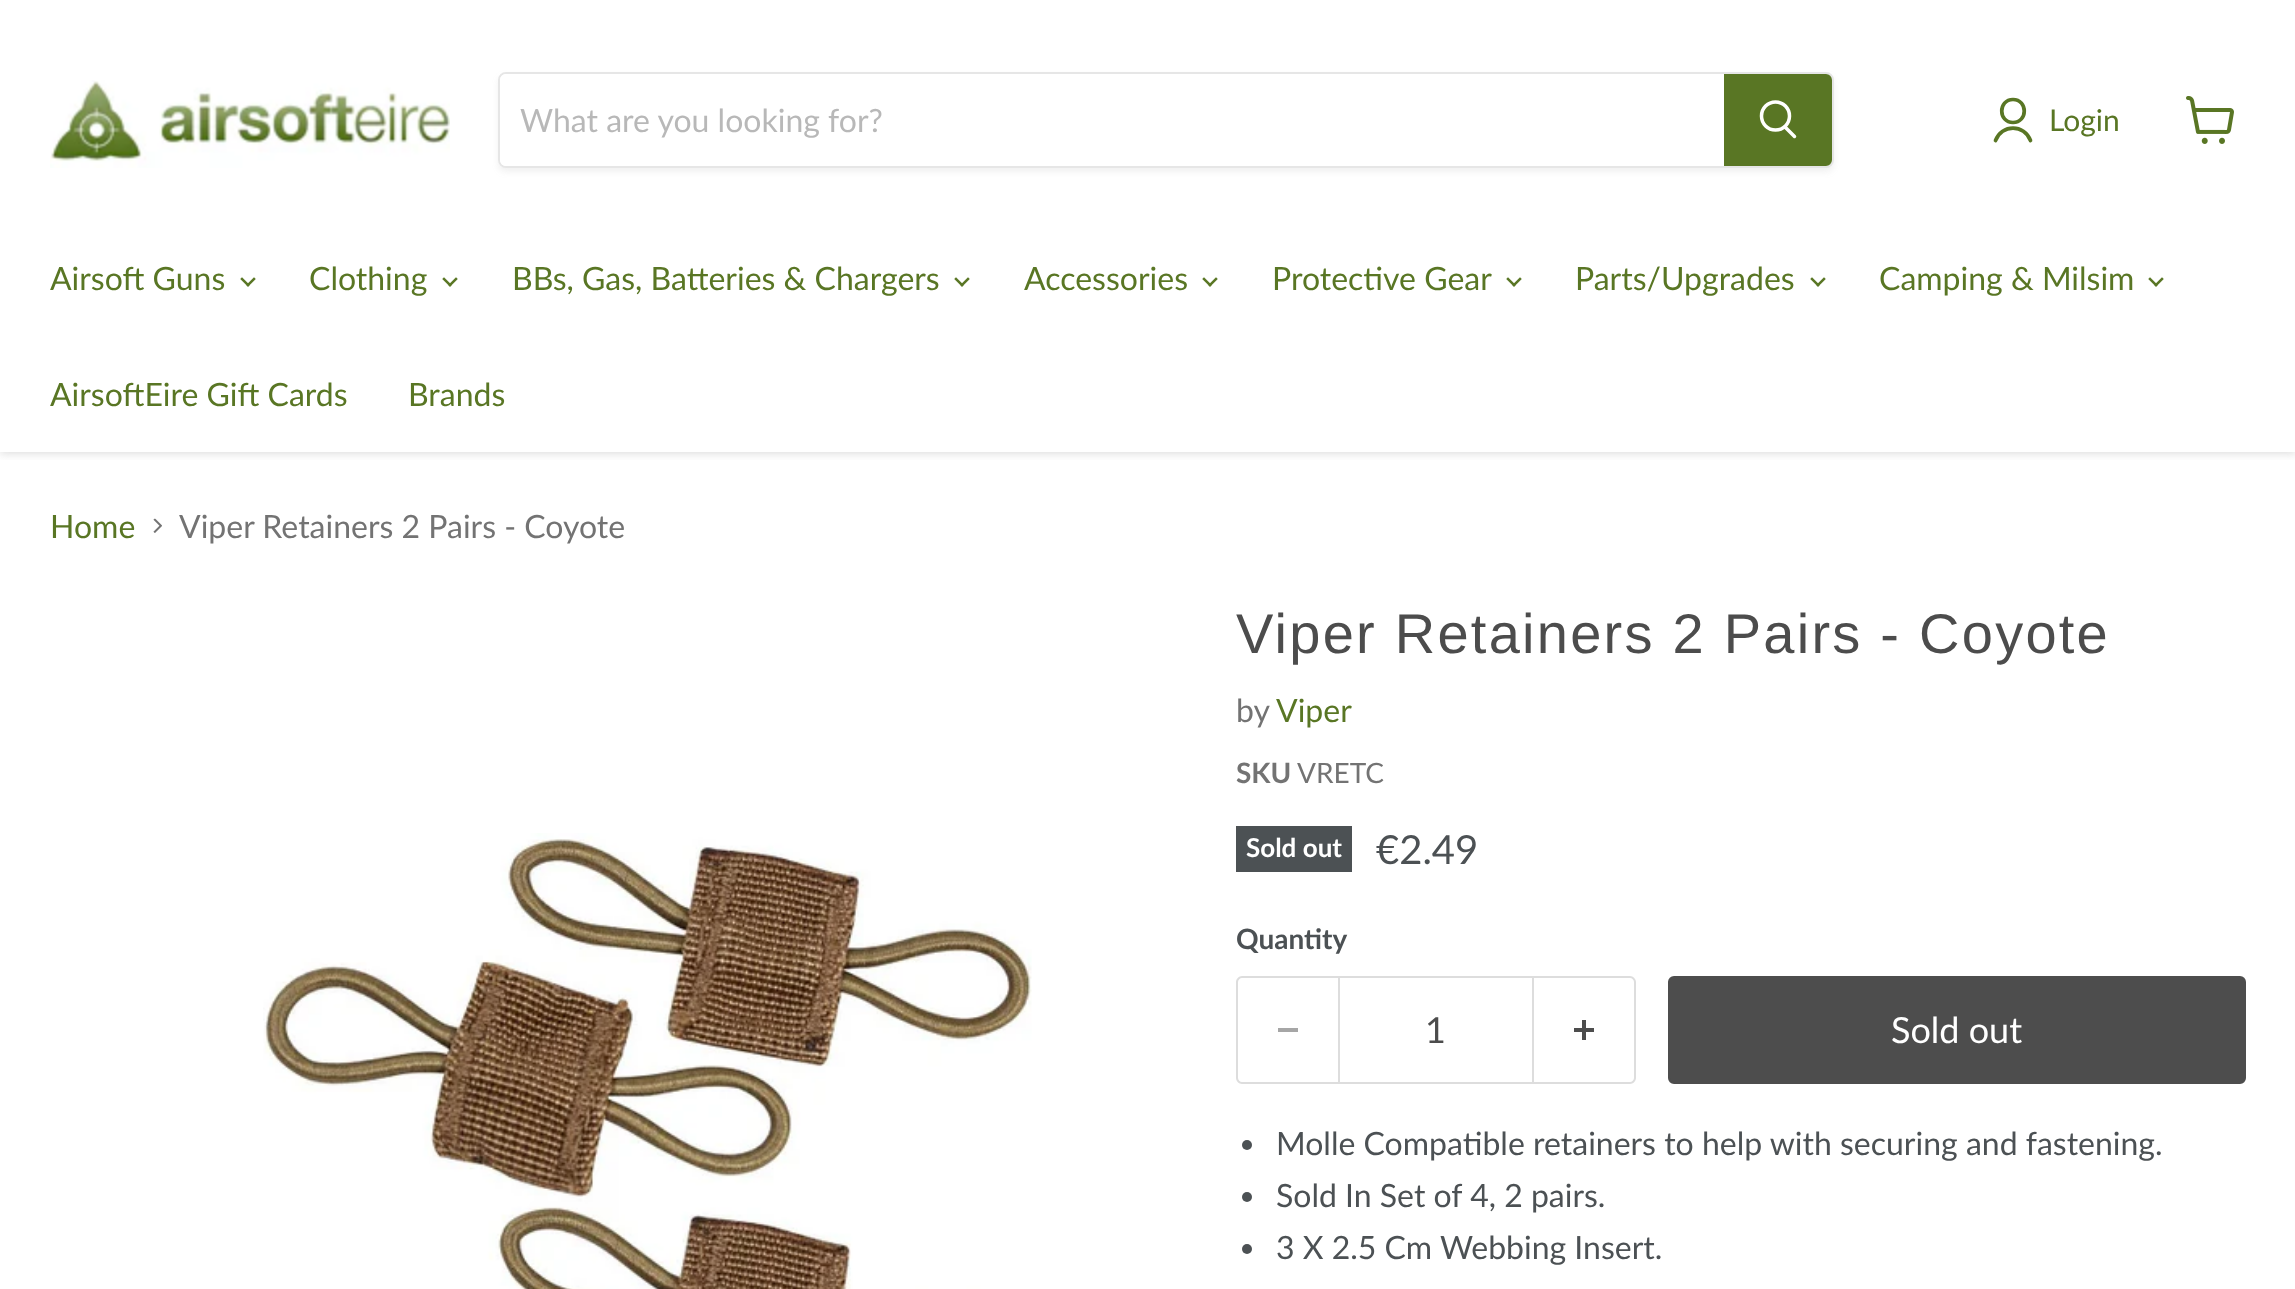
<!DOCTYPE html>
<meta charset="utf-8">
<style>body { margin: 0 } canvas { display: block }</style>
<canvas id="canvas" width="2295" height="1289"></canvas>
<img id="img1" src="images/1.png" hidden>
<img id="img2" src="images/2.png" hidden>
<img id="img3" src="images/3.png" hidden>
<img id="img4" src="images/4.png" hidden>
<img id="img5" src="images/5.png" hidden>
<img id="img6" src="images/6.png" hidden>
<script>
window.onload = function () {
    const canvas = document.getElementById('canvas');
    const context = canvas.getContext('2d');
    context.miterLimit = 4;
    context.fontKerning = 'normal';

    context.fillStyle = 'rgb(255, 255, 255)';
    context.fillRect(0, 0, 2295, 1289);
    context.save();
    context.beginPath();
    context.rect(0, 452, 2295, 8);
    context.clip();
    context.fillStyle = 'rgba(128, 128, 128, 0.25)';
    context.filter = 'blur(4px)';
    context.beginPath();
    context.rect(0, 2, 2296, 452);
    context.fill();
    context.filter = 'none';
    context.restore();
    context.drawImage(document.getElementById('img1'), 50, 80, 400, 88);
    context.save();
    context.beginPath();
    context.moveTo(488, 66);
    context.lineTo(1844, 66);
    context.lineTo(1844, 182);
    context.lineTo(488, 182);
    context.closePath();
    context.moveTo(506, 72);
    context.lineTo(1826, 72);
    context.bezierCurveTo(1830.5, 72, 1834, 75.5, 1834, 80);
    context.lineTo(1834, 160);
    context.bezierCurveTo(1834, 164.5, 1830.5, 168, 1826, 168);
    context.lineTo(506, 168);
    context.bezierCurveTo(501.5, 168, 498, 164.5, 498, 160);
    context.lineTo(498, 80);
    context.bezierCurveTo(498, 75.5, 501.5, 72, 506, 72);
    context.closePath();
    context.clip('evenodd');
    context.fillStyle = 'rgba(128, 128, 128, 0.11)';
    context.filter = 'blur(3px)';
    context.beginPath();
    context.roundRect(498, 76, 1336, 96, 8);
    context.fill();
    context.filter = 'none';
    context.restore();
    context.beginPath();
    context.roundRect(499, 73, 1334, 94, 7);
    context.strokeStyle = 'rgba(128, 128, 128, 0.2)';
    context.lineWidth = 2;
    context.stroke();
    context.beginPath();
    context.roundRect(500, 74, 1224, 92, [6, 0, 0, 6]);
    context.fill();
    context.fillStyle = 'rgb(89, 118, 36)';
    context.beginPath();
    context.roundRect(1725, 75, 106, 90, [0, 5, 5, 0]);
    context.fill();
    context.strokeStyle = 'rgb(89, 118, 36)';
    context.stroke();
    context.beginPath();
    context.moveTo(1794.5, 136.5);
    context.lineTo(1785, 127);
    context.strokeStyle = 'rgb(255, 255, 255)';
    context.lineWidth = 3.5;
    context.lineCap = 'round';
    context.stroke();
    context.beginPath();
    context.arc(1775.5, 116, 14, 0, 2 * Math.PI);
    context.stroke();
    context.beginPath();
    context.moveTo(2013, 122.5);
    context.bezierCurveTo(2028, 122.5, 2028, 99.5, 2013, 99.5);
    context.bezierCurveTo(1998, 99.5, 1998, 122.5, 2013, 122.5);
    context.closePath();
    context.moveTo(2030.5, 140.5);
    context.bezierCurveTo(2024.5, 124, 2001.5, 124, 1995.5, 140.5);
    context.strokeStyle = 'rgb(89, 118, 36)';
    context.lineWidth = 3.7;
    context.lineJoin = 'round';
    context.stroke();
    context.drawImage(document.getElementById('img2'), 2186, 96, 48, 48);
    context.drawImage(document.getElementById('img3'), 240, 277, 16, 10);
    context.drawImage(document.getElementById('img3'), 442, 277, 16, 10);
    context.drawImage(document.getElementById('img3'), 954, 277, 16, 10);
    context.drawImage(document.getElementById('img3'), 1202, 277, 16, 10);
    context.drawImage(document.getElementById('img3'), 1506, 277, 16, 10);
    context.drawImage(document.getElementById('img3'), 1810, 277, 16, 10);
    context.drawImage(document.getElementById('img3'), 2148, 277, 16, 10);
    context.drawImage(document.getElementById('img4'), 153, 518, 9, 15);
    context.drawImage(document.getElementById('img5'), 263, 833, 769, 456);
    context.fillStyle = 'rgb(76, 81, 84)';
    context.fillRect(1236, 826, 116, 46);
    context.fillStyle = 'rgb(221, 221, 221)';
    context.beginPath();
    context.moveTo(1242, 976);
    context.lineTo(1338, 976);
    context.lineTo(1338, 1084);
    context.lineTo(1242, 1084);
    context.bezierCurveTo(1239, 1084, 1236, 1081, 1236, 1078);
    context.lineTo(1236, 982);
    context.bezierCurveTo(1236, 979, 1239, 976, 1242, 976);
    context.closePath();
    context.moveTo(1242, 978);
    context.lineTo(1338, 978);
    context.lineTo(1338, 1082);
    context.lineTo(1242, 1082);
    context.bezierCurveTo(1240, 1082, 1238, 1080, 1238, 1078);
    context.lineTo(1238, 982);
    context.bezierCurveTo(1238, 980, 1240, 978, 1242, 978);
    context.closePath();
    context.fill('evenodd');
    context.fillStyle = 'rgb(166, 166, 166)';
    context.fillRect(1278, 1028, 20, 4);
    context.strokeStyle = 'rgb(221, 221, 221)';
    context.lineWidth = 2;
    context.lineJoin = 'miter';
    context.strokeRect(1339, 977, 194, 106);
    context.fillStyle = 'rgb(221, 221, 221)';
    context.beginPath();
    context.moveTo(1534, 976);
    context.lineTo(1630, 976);
    context.bezierCurveTo(1633, 976, 1636, 979, 1636, 982);
    context.lineTo(1636, 1078);
    context.bezierCurveTo(1636, 1081, 1633, 1084, 1630, 1084);
    context.lineTo(1534, 1084);
    context.closePath();
    context.moveTo(1534, 978);
    context.lineTo(1630, 978);
    context.bezierCurveTo(1632, 978, 1634, 980, 1634, 982);
    context.lineTo(1634, 1078);
    context.bezierCurveTo(1634, 1080, 1632, 1082, 1630, 1082);
    context.lineTo(1534, 1082);
    context.closePath();
    context.fill('evenodd');
    context.drawImage(document.getElementById('img6'), 1574, 1020, 20, 20);
    context.fillStyle = 'rgb(77, 77, 77)';
    context.beginPath();
    context.roundRect(1669, 977, 576, 106, 5);
    context.fill();
    context.strokeStyle = 'rgb(77, 77, 77)';
    context.stroke();
    context.fillStyle = 'rgb(76, 81, 84)';
    context.beginPath();
    context.arc(1247, 1145, 5, 0, 2 * Math.PI);
    context.fill();
    context.beginPath();
    context.arc(1247, 1197, 5, 0, 2 * Math.PI);
    context.fill();
    context.beginPath();
    context.arc(1247, 1249, 5, 0, 2 * Math.PI);
    context.fill();
    context.font = '32px Lato';
    context.fillStyle = 'rgb(184, 184, 184)';
    context.fillText('What are you looking for?', 520, 132);
    context.font = '30px Lato';
    context.fillStyle = 'rgb(89, 118, 36)';
    context.fillText('Login', 2049, 131);
    context.font = '32px Lato';
    context.fillText('Airsoft Guns', 50, 290);
    context.fillText('Clothing', 309, 290);
    context.fillText('BBs, Gas, Batteries & Chargers', 512, 290);
    context.fillText('Accessories', 1024, 290);
    context.fillText('Protective Gear', 1272, 290);
    context.fillText('Parts/Upgrades', 1575, 290);
    context.fillText('Camping & Milsim', 1879, 290);
    context.fillText('AirsoftEire Gift Cards', 50, 406);
    context.fillText('Brands', 408, 406);
    context.fillText('Home', 50, 538);
    context.fillStyle = 'rgb(115, 115, 115)';
    context.fillText('Viper Retainers 2 Pairs - Coyote', 179, 538);
    context.letterSpacing = '2.25px';
    context.font = '56px Arimo';
    context.fillStyle = 'rgb(76, 76, 76)';
    context.fillText('Viper Retainers 2 Pairs - Coyote', 1236, 653);
    context.letterSpacing = '0px';
    context.font = '32px Lato';
    context.fillStyle = 'rgb(115, 115, 115)';
    context.fillText('by', 1236, 722);
    context.fillStyle = 'rgb(89, 118, 36)';
    context.fillText('Viper', 1276, 722);
    context.font = 'bold 28px Lato';
    context.fillStyle = 'rgb(115, 115, 115)';
    context.fillText('SKU', 1236, 783);
    context.font = '28px Lato';
    context.fillText('VRETC', 1297, 783);
    context.font = 'bold 26px Lato';
    context.fillStyle = 'rgb(255, 255, 255)';
    context.fillText('Sold out', 1246, 857);
    context.font = '40px Lato';
    context.fillStyle = 'rgb(76, 81, 84)';
    context.fillText('€2.49', 1376, 864);
    context.font = 'bold 28px Lato';
    context.fillText('Quantity', 1236, 949);
    context.font = '36px Lato';
    context.fillStyle = 'rgb(76, 76, 76)';
    context.fillText('1', 1425, 1043);
    context.fillStyle = 'rgb(255, 255, 255)';
    context.fillText('Sold out', 1891, 1043);
    context.font = '32px Lato';
    context.fillStyle = 'rgb(76, 81, 84)';
    context.fillText('Molle Compatible retainers to help with securing and fastening.', 1276, 1155);
    context.fillText('Sold In Set of 4, 2 pairs.', 1276, 1207);
    context.fillText('3 X 2.5 Cm Webbing Insert.', 1276, 1259);
};
</script>
